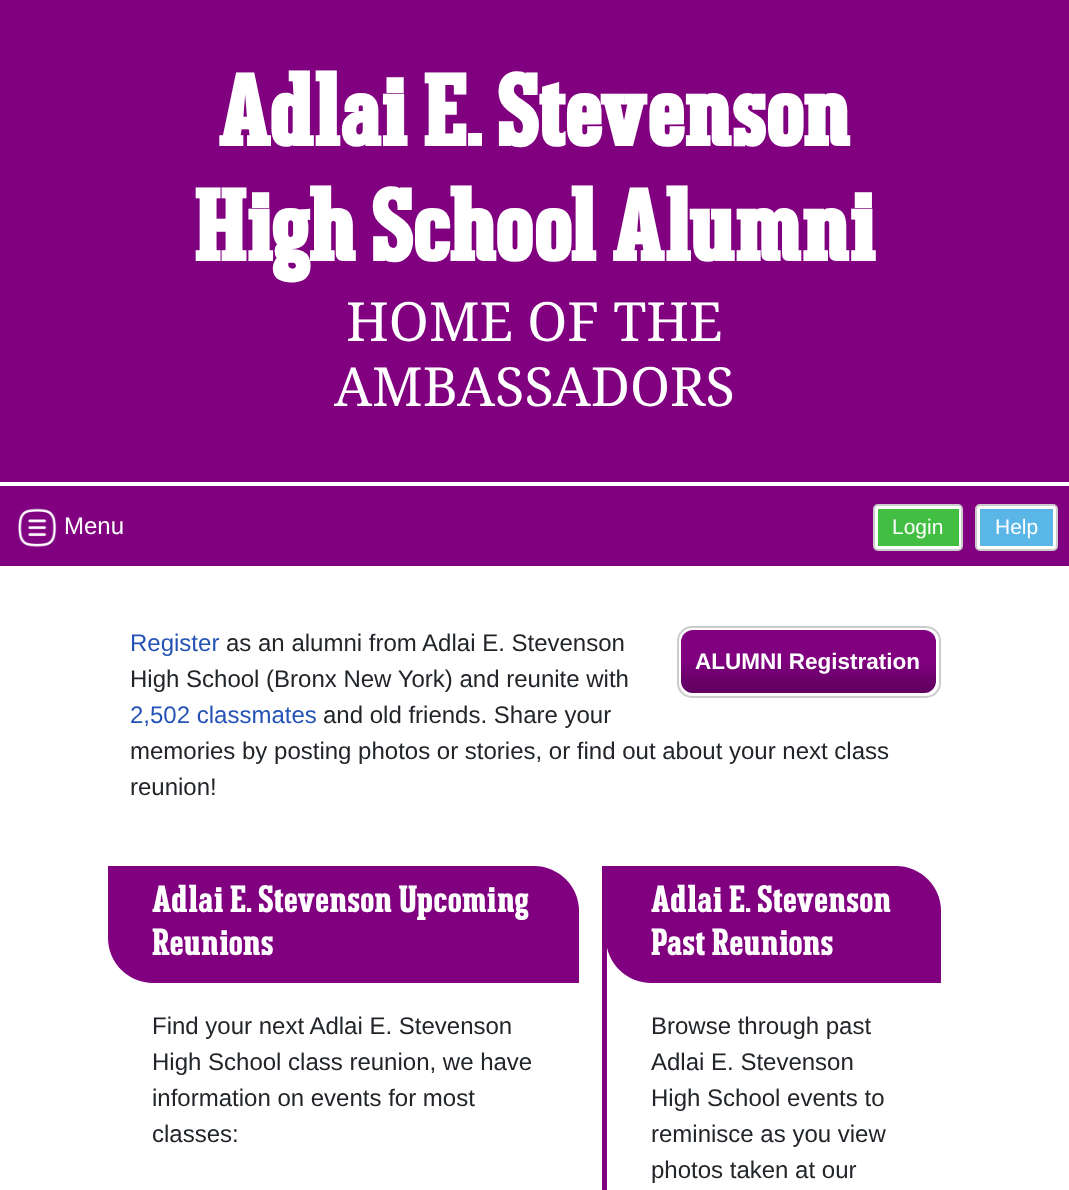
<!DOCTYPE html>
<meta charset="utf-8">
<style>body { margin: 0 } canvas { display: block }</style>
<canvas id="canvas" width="1069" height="1190"></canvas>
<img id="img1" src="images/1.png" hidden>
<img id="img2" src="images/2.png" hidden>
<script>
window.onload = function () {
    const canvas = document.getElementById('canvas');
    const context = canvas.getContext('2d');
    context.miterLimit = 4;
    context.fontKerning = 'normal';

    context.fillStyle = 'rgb(255, 255, 255)';
    context.fillRect(0, 0, 1069, 1190);
    context.fillStyle = 'rgb(128, 0, 128)';
    context.fillRect(0, 0, 1069, 482);
    context.fillRect(0, 486, 1069, 80);
    context.drawImage(document.getElementById('img1'), 18, 508, 39, 39);
    context.fillStyle = 'rgb(255, 255, 255)';
    context.beginPath();
    context.roundRect(874, 505, 88, 45, 4);
    context.fill();
    context.strokeStyle = 'rgb(204, 204, 204)';
    context.lineWidth = 2;
    context.stroke();
    context.fillStyle = 'rgb(66, 190, 66)';
    context.fillRect(878, 509, 81, 37);
    context.fillStyle = 'rgb(255, 255, 255)';
    context.beginPath();
    context.roundRect(976, 505, 81, 45, 4);
    context.fill();
    context.stroke();
    context.fillStyle = 'rgb(89, 182, 231)';
    context.fillRect(980, 509, 73, 37);
    context.beginPath();
    context.roundRect(678, 627, 262, 70, 14);
    context.stroke();
    context.fillStyle = 'rgb(128, 0, 128)';
    context.beginPath();
    context.roundRect(681, 630, 255, 63, 12);
    context.fill();
    context.drawImage(document.getElementById('img2'), 681, 663, 255, 30);
    context.fillRect(602, 866, 5, 324);
    context.beginPath();
    context.roundRect(108, 866, 471, 117, [0, 45, 0, 45]);
    context.fill();
    context.beginPath();
    context.roundRect(606, 866, 335, 117, [0, 45, 0, 45]);
    context.fill();
    context.letterSpacing = '1.5px';
    context.font = 'bold 96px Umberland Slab';
    context.fillStyle = 'rgb(255, 255, 255)';
    context.fillText('Adlai E. Stevenson', 218, 146);
    context.fillText('High School Alumni', 194, 261);
    context.letterSpacing = '0px';
    context.font = '54px Droid Serif';
    context.fillText('HOME OF THE', 346, 341);
    context.fillText('AMBASSADORS', 334, 406);
    context.font = '24px Liberation Sans';
    context.fillText('Menu', 64, 534);
    context.font = '21px Liberation Sans';
    context.fillText('Login', 892, 534);
    context.fillText('Help', 995, 534);
    context.font = '24px Liberation Sans';
    context.fillStyle = 'rgb(37, 83, 181)';
    context.fillText('Register', 130, 651);
    context.fillStyle = 'rgb(33, 37, 41)';
    context.fillText('as an alumni from Adlai E. Stevenson', 226, 651);
    context.fillText('High School (Bronx New York) and reunite with', 130, 687);
    context.fillStyle = 'rgb(37, 83, 181)';
    context.fillText('2,502 classmates', 130, 723);
    context.fillStyle = 'rgb(33, 37, 41)';
    context.fillText('and old friends. Share your', 323, 723);
    context.fillText('memories by posting photos or stories, or find out about your next class', 130, 759);
    context.fillText('reunion!', 130, 795);
    context.font = 'bold 22.5px Liberation Sans';
    context.fillStyle = 'rgb(255, 255, 255)';
    context.fillText('ALUMNI Registration', 695, 669);
    context.letterSpacing = '0.75px';
    context.font = '36px Umberland Slab';
    context.fillText('Adlai E. Stevenson Upcoming', 152, 912);
    context.fillText('Reunions', 152, 955);
    context.letterSpacing = '0px';
    context.font = '24px Liberation Sans';
    context.fillStyle = 'rgb(33, 37, 41)';
    context.fillText('Find your next Adlai E. Stevenson', 152, 1034);
    context.fillText('High School class reunion, we have', 152, 1070);
    context.fillText('information on events for most', 152, 1106);
    context.fillText('classes:', 152, 1142);
    context.letterSpacing = '0.75px';
    context.font = '36px Umberland Slab';
    context.fillStyle = 'rgb(255, 255, 255)';
    context.fillText('Adlai E. Stevenson', 651, 912);
    context.fillText('Past Reunions', 651, 955);
    context.letterSpacing = '0px';
    context.font = '24px Liberation Sans';
    context.fillStyle = 'rgb(33, 37, 41)';
    context.fillText('Browse through past', 651, 1034);
    context.fillText('Adlai E. Stevenson', 651, 1070);
    context.fillText('High School events to', 651, 1106);
    context.fillText('reminisce as you view', 651, 1142);
    context.fillText('photos taken at our', 651, 1178);
};
</script>
